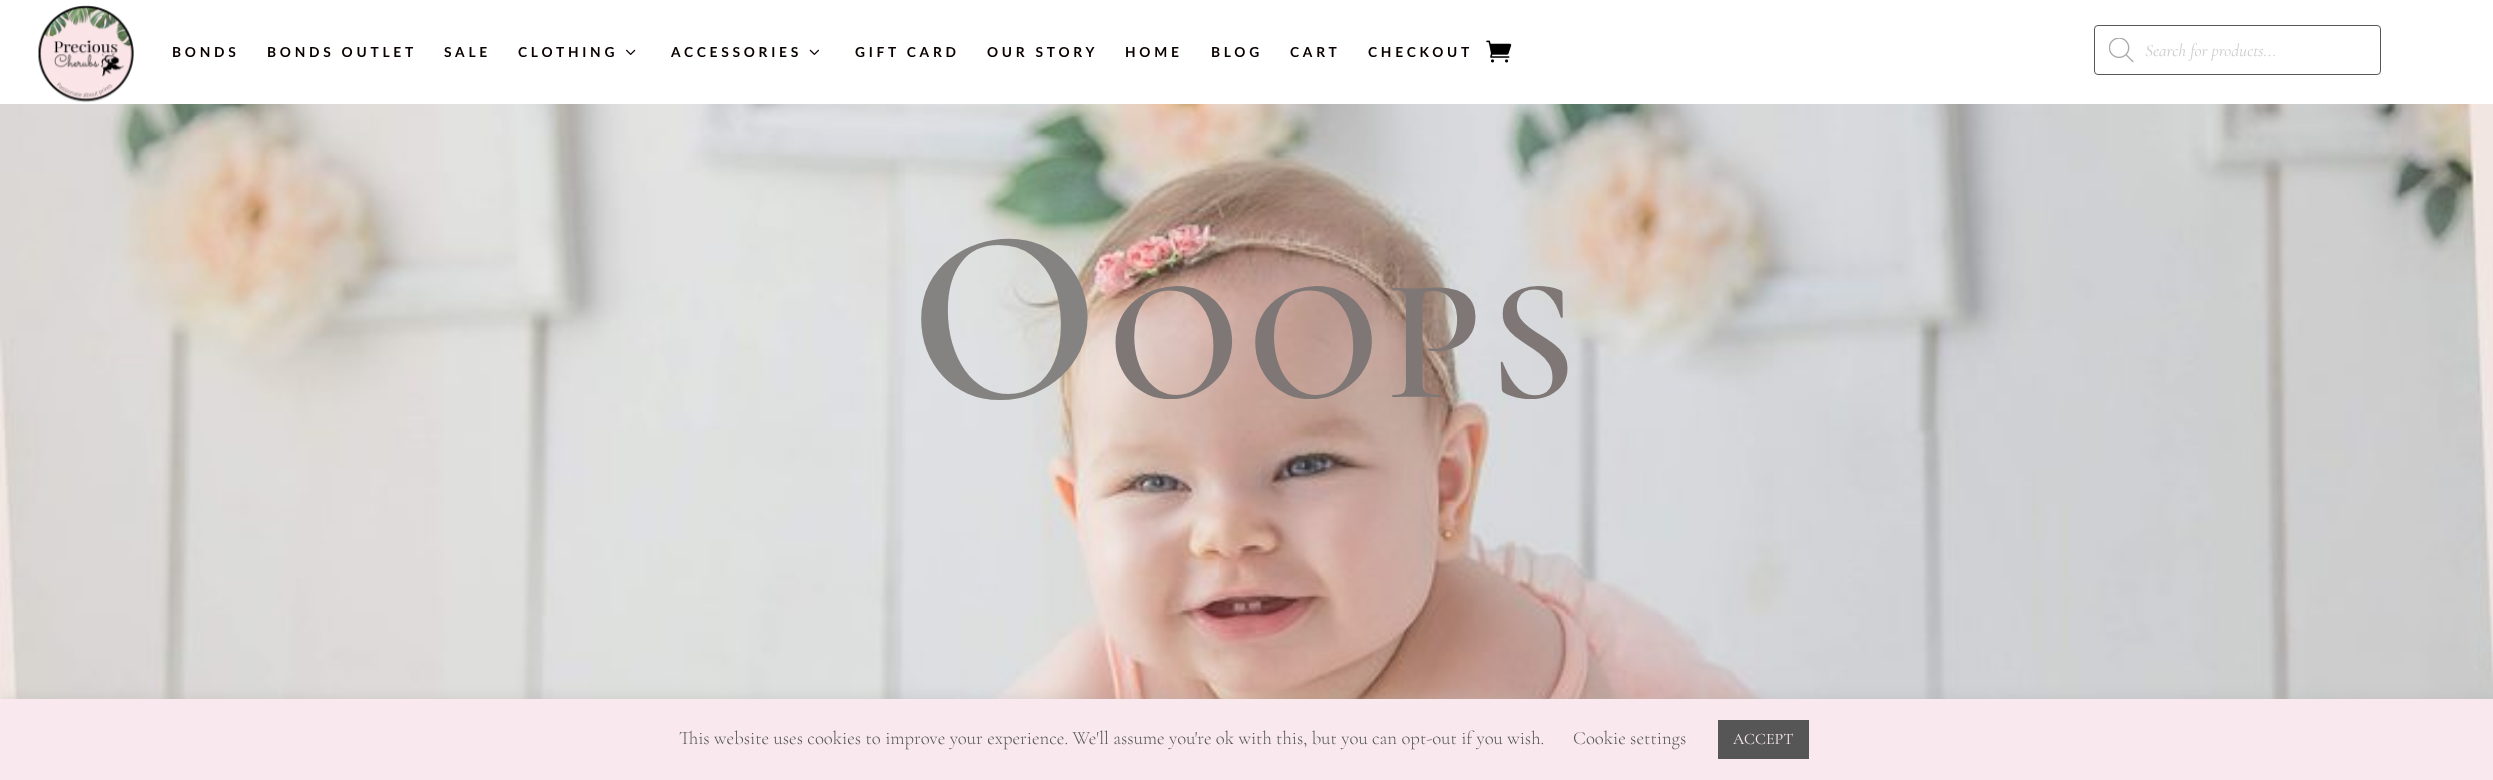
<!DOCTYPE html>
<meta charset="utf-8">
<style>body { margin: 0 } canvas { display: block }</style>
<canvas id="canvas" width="2493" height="780"></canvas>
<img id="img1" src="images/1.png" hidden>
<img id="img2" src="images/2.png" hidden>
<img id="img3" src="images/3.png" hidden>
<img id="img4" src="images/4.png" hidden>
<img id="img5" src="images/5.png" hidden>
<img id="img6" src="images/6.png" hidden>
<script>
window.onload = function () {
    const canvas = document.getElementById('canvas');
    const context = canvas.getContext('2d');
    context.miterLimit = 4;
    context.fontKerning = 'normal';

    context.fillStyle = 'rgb(255, 255, 255)';
    context.fillRect(0, 0, 2493, 780);
    context.drawImage(document.getElementById('img1'), 38, 5, 96, 98);
    context.drawImage(document.getElementById('img2'), 626, 49, 10, 6);
    context.drawImage(document.getElementById('img3'), 809, 49, 10, 6);
    context.drawImage(document.getElementById('img4'), 1486, 40, 26, 23);
    context.beginPath();
    context.roundRect(2094.5, 25.5, 286, 49, 3.5);
    context.strokeStyle = 'rgb(86, 86, 86)';
    context.stroke();
    context.drawImage(document.getElementById('img5'), 2109, 38, 25, 25);
    context.drawImage(document.getElementById('img6'), 0, 104, 2493, 595);
    context.fillStyle = 'rgba(172, 171, 171, 0.3)';
    context.filter = 'blur(6px)';
    context.beginPath();
    context.rect(0, 698, 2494, 81);
    context.fill();
    context.filter = 'none';
    context.fillStyle = 'rgb(249, 233, 239)';
    context.fillRect(0, 699, 2493, 81);
    context.fillStyle = 'rgb(86, 86, 86)';
    context.fillRect(1718, 720, 91, 39);
    context.letterSpacing = '3.75px';
    context.font = 'bold 13.75px Lato';
    context.fillStyle = 'rgb(10, 0, 0)';
    context.fillText('BONDS', 172, 57);
    context.fillText('BONDS OUTLET', 267, 57);
    context.fillText('SALE', 444, 57);
    context.fillText('CLOTHING', 518, 57);
    context.fillText('ACCESSORIES', 671, 57);
    context.fillText('GIFT CARD', 855, 57);
    context.fillText('OUR STORY', 987, 57);
    context.fillText('HOME', 1125, 57);
    context.fillText('BLOG', 1211, 57);
    context.fillText('CART', 1290, 57);
    context.fillText('CHECKOUT', 1368, 57);
    context.letterSpacing = '0px';
    context.font = 'italic 300 17.5px Cormorant Garamond';
    context.fillStyle = 'rgb(204, 204, 204)';
    context.fillText('Search for products...', 2145, 56);
    context.letterSpacing = '6px';
    context.font = '600 249px Cormorant Garamond';
    context.fillStyle = 'rgb(132, 131, 129)';
    context.fillText('O', 909, 397);
    context.font = '600 174.5px Cormorant Garamond';
    context.fillStyle = 'rgb(127, 119, 117)';
    context.fillText('OOPS', 1107, 397);
    context.letterSpacing = '0px';
    context.font = '300 18.75px Cormorant Garamond';
    context.fillStyle = 'rgb(86, 86, 86)';
    context.fillText('This website uses cookies to improve your experience. We\'ll assume you\'re ok with this, but you can opt-out if you wish.', 679, 744);
    context.fillText('Cookie settings', 1573, 744);
    context.font = '300 16px "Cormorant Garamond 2"';
    context.fillStyle = 'rgb(249, 233, 239)';
    context.fillText('ACCEPT', 1733, 744);
};
</script>
